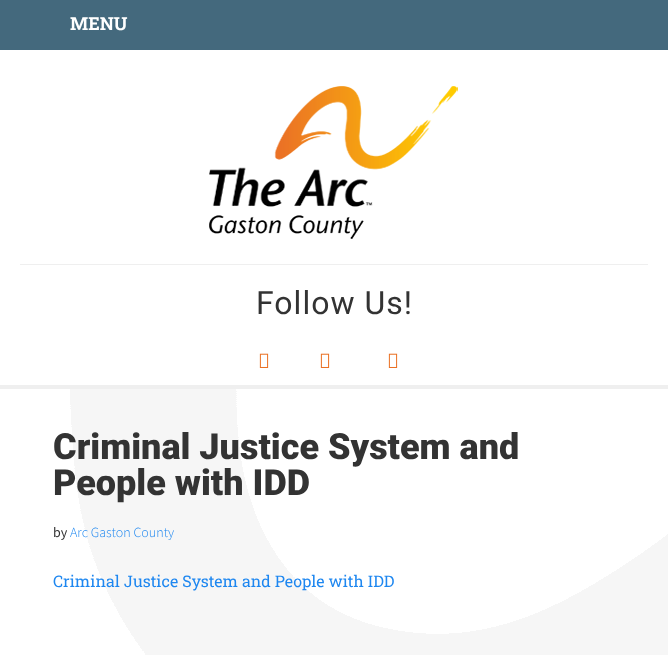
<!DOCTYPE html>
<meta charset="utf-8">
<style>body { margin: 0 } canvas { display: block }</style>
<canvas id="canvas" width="668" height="655"></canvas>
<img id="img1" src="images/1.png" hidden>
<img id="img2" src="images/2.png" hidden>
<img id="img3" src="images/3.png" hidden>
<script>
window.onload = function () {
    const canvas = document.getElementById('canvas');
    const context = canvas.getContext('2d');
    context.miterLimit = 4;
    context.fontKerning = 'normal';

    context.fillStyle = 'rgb(255, 255, 255)';
    context.fillRect(0, 0, 668, 655);
    context.fillStyle = 'rgb(68, 105, 125)';
    context.fillRect(0, 0, 668, 50);
    context.drawImage(document.getElementById('img1'), 209, 86, 249, 153);
    context.fillStyle = 'rgb(239, 239, 239)';
    context.fillRect(20, 264, 628, 1);
    context.drawImage(document.getElementById('img2'), 259, 353, 10, 15);
    context.drawImage(document.getElementById('img2'), 320, 353, 10, 15);
    context.drawImage(document.getElementById('img2'), 388, 353, 10, 15);
    context.fillRect(0, 385, 668, 4);
    context.drawImage(document.getElementById('img3'), 70, 389, 598, 266);
    context.font = 'bold 18px Roboto Slab';
    context.fillStyle = 'rgb(255, 255, 255)';
    context.fillText('MENU', 70, 30);
    context.letterSpacing = '1px';
    context.font = '32px Roboto';
    context.fillStyle = 'rgb(51, 51, 51)';
    context.fillText('Follow Us!', 256, 314);
    context.letterSpacing = '0px';
    context.font = '900 36px Roboto';
    context.fillText('Criminal Justice System and', 53, 459);
    context.fillText('People with IDD', 53, 495);
    context.font = '14px Source Sans Pro';
    context.fillText('by', 53, 537);
    context.font = '300 14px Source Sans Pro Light';
    context.fillStyle = 'rgb(30, 135, 240)';
    context.fillText('Arc Gaston County', 70, 537);
    context.font = '16px Roboto Slab';
    context.fillText('Criminal Justice System and People with IDD', 53, 587);
};
</script>
